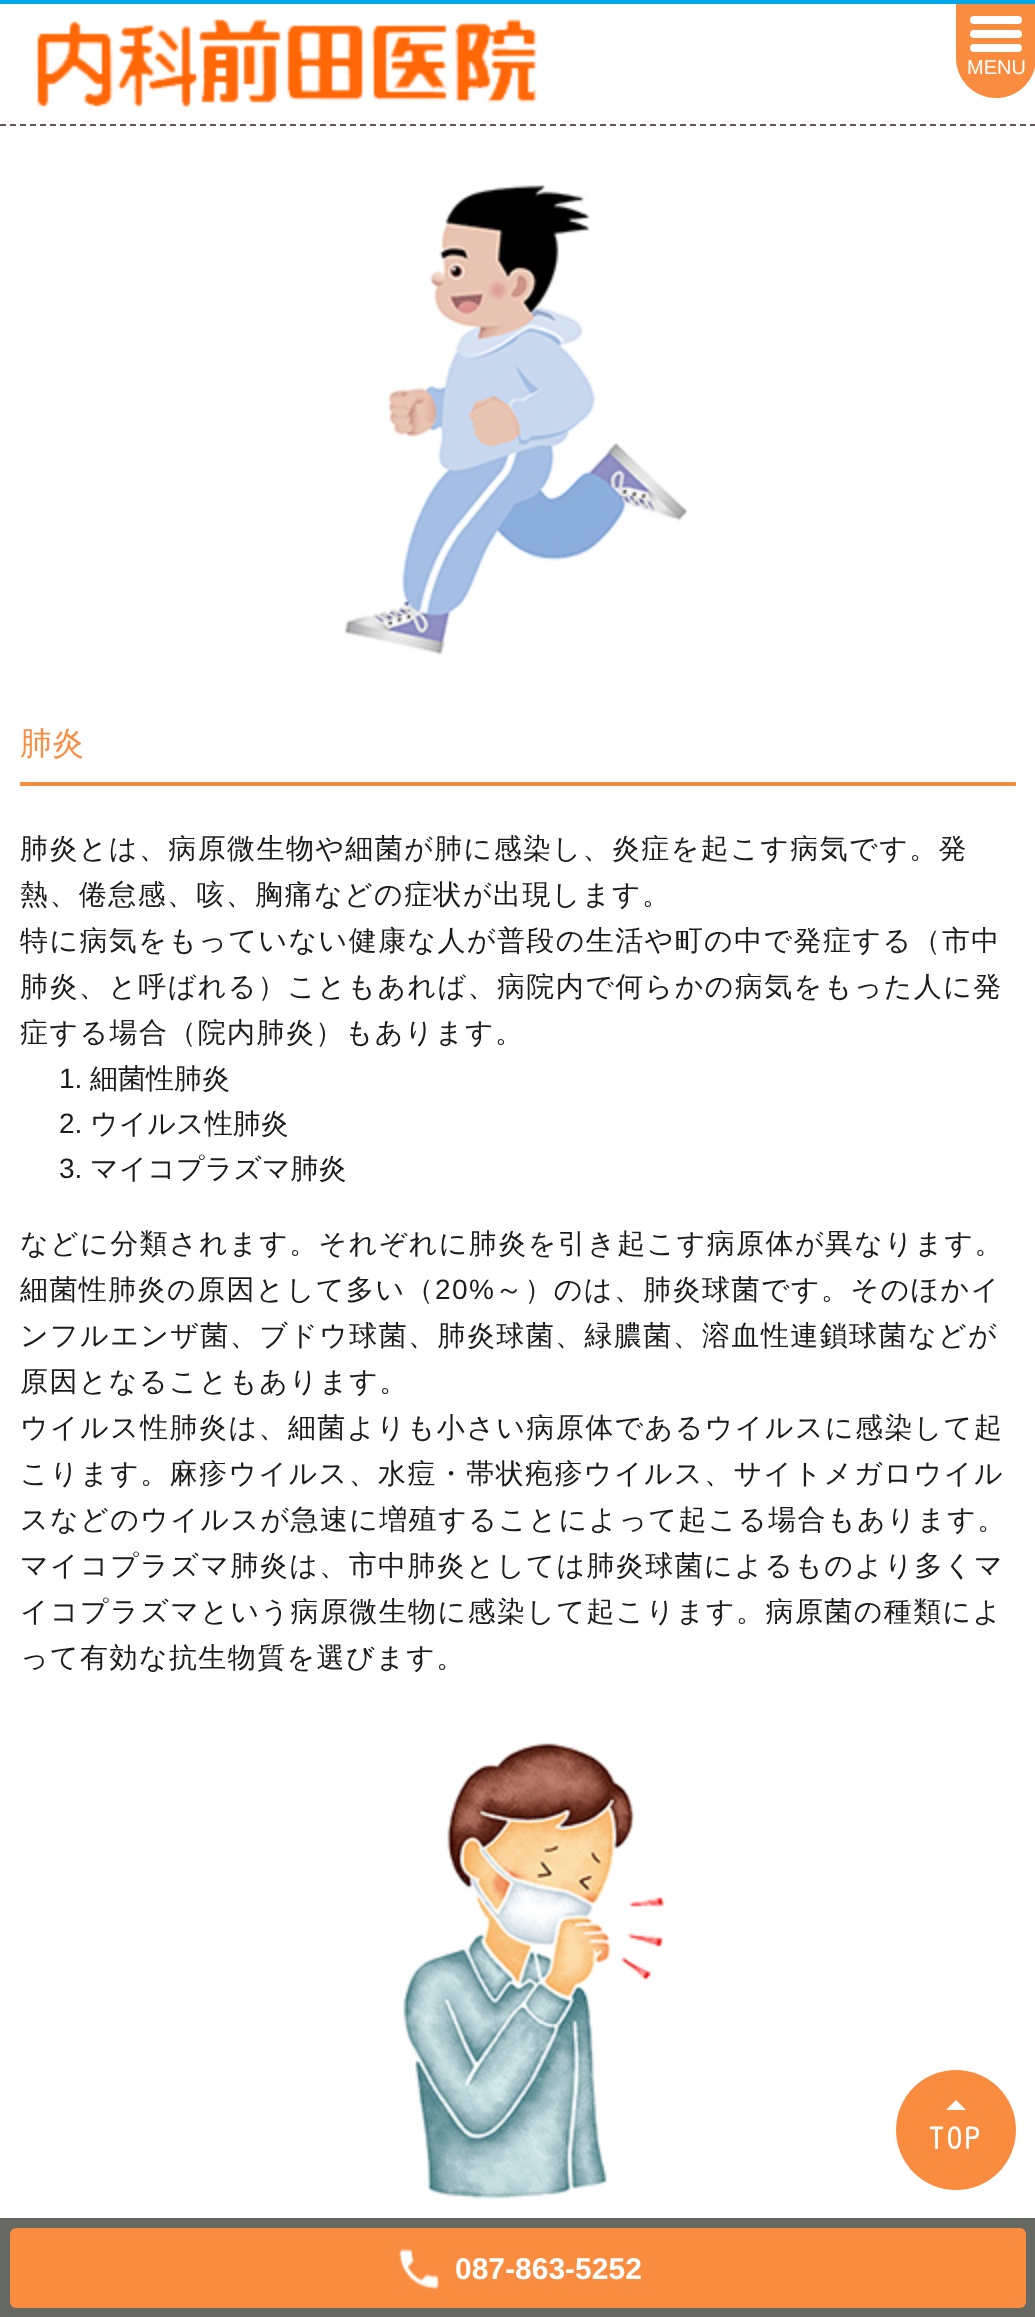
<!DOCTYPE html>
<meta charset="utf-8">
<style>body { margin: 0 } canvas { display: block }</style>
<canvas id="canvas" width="1035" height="2317"></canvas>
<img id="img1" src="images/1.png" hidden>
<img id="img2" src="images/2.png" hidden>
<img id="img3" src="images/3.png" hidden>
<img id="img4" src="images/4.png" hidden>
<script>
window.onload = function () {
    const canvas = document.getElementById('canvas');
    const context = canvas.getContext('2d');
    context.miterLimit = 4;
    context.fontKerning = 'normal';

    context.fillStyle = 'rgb(255, 255, 255)';
    context.fillRect(0, 0, 1035, 2317);
    context.fillStyle = 'rgb(0, 167, 234)';
    context.fillRect(0, 0, 1035, 4);
    context.beginPath();
    context.moveTo(0, 125);
    context.lineTo(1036, 125);
    context.strokeStyle = 'rgb(101, 84, 84)';
    context.lineWidth = 2;
    context.setLineDash([6, 4]);
    context.stroke();
    context.drawImage(document.getElementById('img1'), 36, 19, 501, 90);
    context.fillStyle = 'rgb(250, 140, 64)';
    context.beginPath();
    context.moveTo(956, 4);
    context.lineTo(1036, 4);
    context.lineTo(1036, 58);
    context.bezierCurveTo(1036, 80, 1018, 98, 996, 98);
    context.bezierCurveTo(974, 98, 956, 80, 956, 58);
    context.closePath();
    context.fill();
    context.fillStyle = 'rgb(255, 255, 255)';
    context.beginPath();
    context.roundRect(970, 16, 52, 8, 4);
    context.fill();
    context.beginPath();
    context.roundRect(970, 30, 52, 8, 4);
    context.fill();
    context.beginPath();
    context.roundRect(970, 44, 52, 8, 4);
    context.fill();
    context.drawImage(document.getElementById('img2'), 344, 184, 344, 471);
    context.fillStyle = 'rgb(250, 140, 64)';
    context.fillRect(20, 782, 996, 4);
    context.drawImage(document.getElementById('img3'), 403, 1743, 262, 456);
    context.beginPath();
    context.arc(956, 2130, 60, 0, 2 * Math.PI);
    context.fill();
    context.fillStyle = 'rgb(255, 255, 255)';
    context.beginPath();
    context.moveTo(966, 2110);
    context.lineTo(946, 2110);
    context.lineTo(956, 2100);
    context.closePath();
    context.fill();
    context.fillStyle = 'rgb(101, 105, 98)';
    context.fillRect(0, 2218, 1035, 99);
    context.fillStyle = 'rgb(250, 140, 64)';
    context.beginPath();
    context.roundRect(10, 2228, 1016, 80, 6);
    context.fill();
    context.drawImage(document.getElementById('img4'), 399, 2248, 40, 42);
    context.font = '20px Liberation Sans';
    context.fillStyle = 'rgb(255, 255, 255)';
    context.fillText('MENU', 967, 74);
    context.font = '500 32px WenQuanYi Zen Hei';
    context.fillStyle = 'rgb(250, 140, 64)';
    context.fillText('肺炎', 20, 754);
    context.letterSpacing = '1.4px';
    context.font = '500 28px WenQuanYi Zen Hei';
    context.fillStyle = 'rgb(27, 27, 27)';
    context.fillText('肺炎とは、病原微生物や細菌が肺に感染し、炎症を起こす病気です。発', 20, 858);
    context.fillText('熱、倦怠感、咳、胸痛などの症状が出現します。', 20, 904);
    context.fillText('特に病気をもっていない健康な人が普段の生活や町の中で発症する（市中', 20, 950);
    context.fillText('肺炎、と呼ばれる）こともあれば、病院内で何らかの病気をもった人に発', 20, 996);
    context.fillText('症する場合（院内肺炎）もあります。', 20, 1042);
    context.letterSpacing = '0px';
    context.font = '28px Liberation Sans';
    context.fillText('1.', 59, 1088);
    context.font = '500 28px WenQuanYi Zen Hei';
    context.fillText('細菌性肺炎', 90, 1088);
    context.font = '28px Liberation Sans';
    context.fillText('2.', 59, 1133);
    context.font = '500 28px WenQuanYi Zen Hei';
    context.fillText('ウイルス性肺炎', 90, 1133);
    context.font = '28px Liberation Sans';
    context.fillText('3.', 59, 1178);
    context.font = '500 28px WenQuanYi Zen Hei';
    context.fillText('マイコプラズマ肺炎', 90, 1178);
    context.letterSpacing = '1.4px';
    context.fillText('などに分類されます。それぞれに肺炎を引き起こす病原体が異なります。', 20, 1253);
    context.fillText('細菌性肺炎の原因として多い（', 20, 1299);
    context.font = '28px Liberation Sans';
    context.fillText('20%', 435, 1299);
    context.font = '500 28px WenQuanYi Zen Hei';
    context.fillText('～）のは、肺炎球菌です。そのほかイ', 495, 1299);
    context.fillText('ンフルエンザ菌、ブドウ球菌、肺炎球菌、緑膿菌、溶血性連鎖球菌などが', 20, 1345);
    context.fillText('原因となることもあります。', 20, 1391);
    context.fillText('ウイルス性肺炎は、細菌よりも小さい病原体であるウイルスに感染して起', 20, 1437);
    context.fillText('こります。麻疹ウイルス、水痘・帯状疱疹ウイルス、サイトメガロウイル', 20, 1483);
    context.fillText('スなどのウイルスが急速に増殖することによって起こる場合もあります。', 20, 1529);
    context.fillText('マイコプラズマ肺炎は、市中肺炎としては肺炎球菌によるものより多くマ', 20, 1575);
    context.fillText('イコプラズマという病原微生物に感染して起こります。病原菌の種類によ', 20, 1621);
    context.fillText('って有効な抗生物質を選びます。', 20, 1667);
    context.letterSpacing = '3px';
    context.font = '30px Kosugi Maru';
    context.fillStyle = 'rgb(255, 255, 255)';
    context.fillText('TOP', 929, 2149);
    context.letterSpacing = '0px';
    context.font = 'bold 30px Liberation Sans';
    context.fillText('087-863-5252', 455, 2279);
};
</script>
